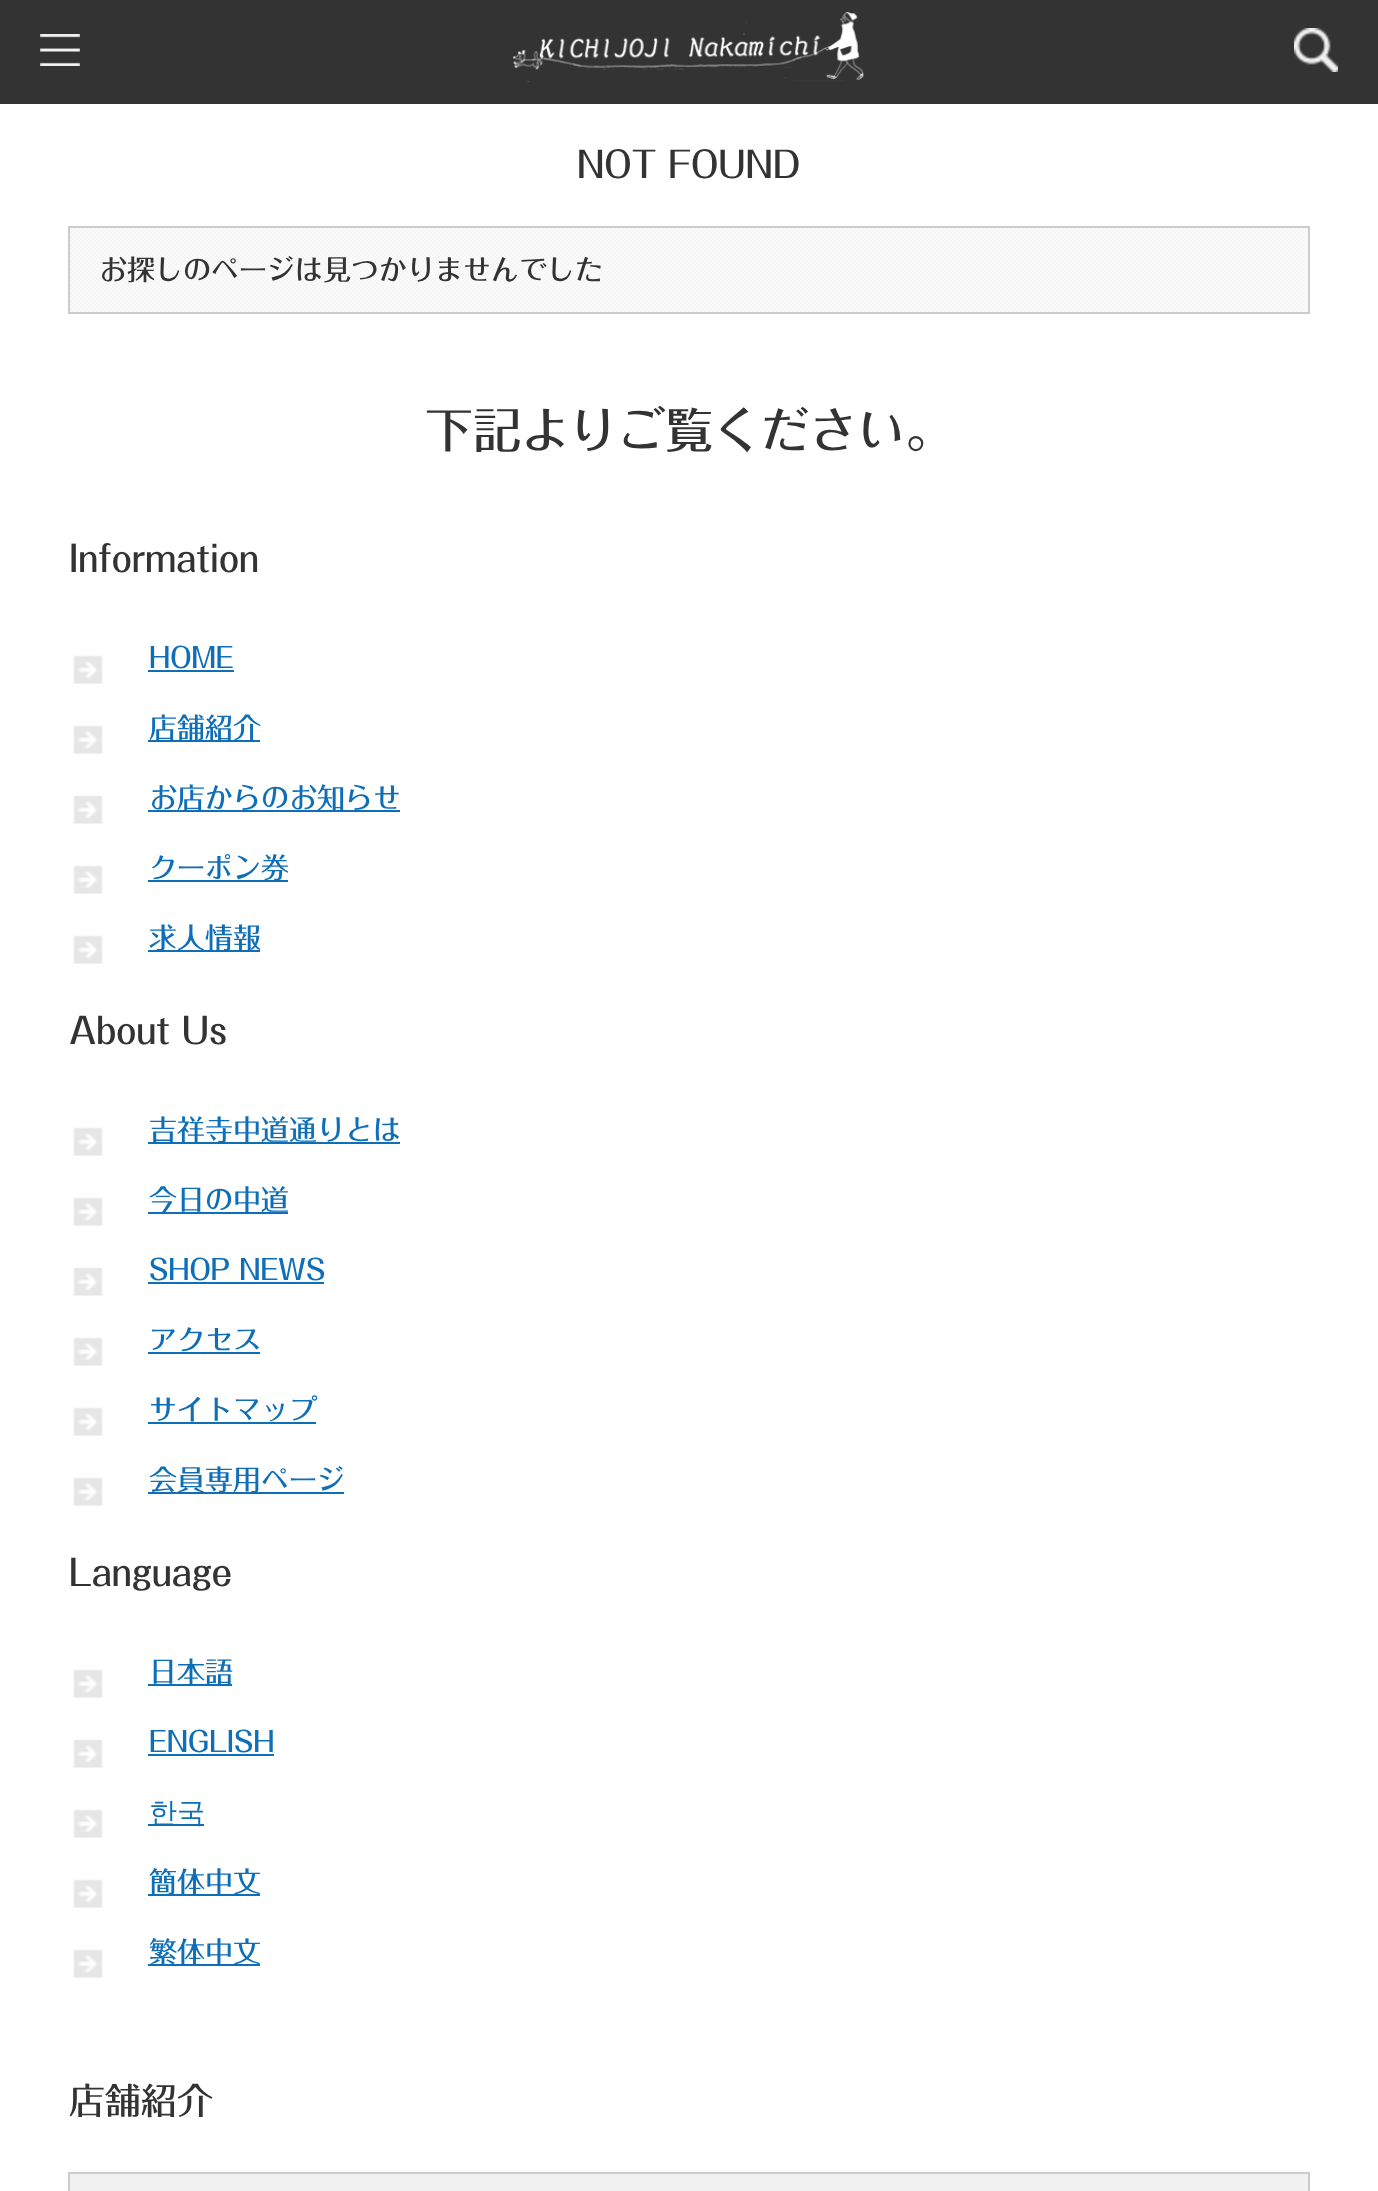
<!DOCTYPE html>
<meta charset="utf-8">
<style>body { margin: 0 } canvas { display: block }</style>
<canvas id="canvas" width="1378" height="2191"></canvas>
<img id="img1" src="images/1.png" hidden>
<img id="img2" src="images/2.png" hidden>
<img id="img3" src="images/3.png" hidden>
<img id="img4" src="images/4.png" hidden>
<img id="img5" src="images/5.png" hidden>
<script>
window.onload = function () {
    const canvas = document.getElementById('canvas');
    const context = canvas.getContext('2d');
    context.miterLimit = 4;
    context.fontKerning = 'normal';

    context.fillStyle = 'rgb(255, 255, 255)';
    context.fillRect(0, 0, 1378, 2191);
    context.fillStyle = 'rgb(51, 51, 51)';
    context.fillRect(0, 0, 1378, 104);
    context.drawImage(document.getElementById('img1'), 40, 34, 40, 32);
    context.drawImage(document.getElementById('img2'), 513, 12, 351, 70);
    context.drawImage(document.getElementById('img3'), 1294, 28, 44, 44);
    context.drawImage(document.getElementById('img4'), 70, 228, 1238, 84);
    context.strokeStyle = 'rgb(204, 204, 204)';
    context.lineWidth = 2;
    context.strokeRect(69, 227, 1240, 86);
    context.drawImage(document.getElementById('img5'), 73, 655, 30, 29);
    context.fillStyle = 'rgb(14, 110, 184)';
    context.fillRect(148, 670, 86, 2);
    context.drawImage(document.getElementById('img5'), 73, 725, 30, 29);
    context.fillRect(148, 740, 112, 2);
    context.drawImage(document.getElementById('img5'), 73, 795, 30, 29);
    context.fillRect(148, 810, 252, 2);
    context.drawImage(document.getElementById('img5'), 73, 865, 30, 29);
    context.fillRect(148, 880, 140, 2);
    context.drawImage(document.getElementById('img5'), 73, 935, 30, 29);
    context.fillRect(148, 950, 112, 2);
    context.drawImage(document.getElementById('img5'), 73, 1127, 30, 29);
    context.fillRect(148, 1142, 252, 2);
    context.drawImage(document.getElementById('img5'), 73, 1197, 30, 29);
    context.fillRect(148, 1212, 140, 2);
    context.drawImage(document.getElementById('img5'), 73, 1267, 30, 29);
    context.fillRect(148, 1282, 176, 2);
    context.drawImage(document.getElementById('img5'), 73, 1337, 30, 29);
    context.fillRect(148, 1352, 112, 2);
    context.drawImage(document.getElementById('img5'), 73, 1407, 30, 29);
    context.fillRect(148, 1422, 168, 2);
    context.drawImage(document.getElementById('img5'), 73, 1477, 30, 29);
    context.fillRect(148, 1492, 196, 2);
    context.drawImage(document.getElementById('img5'), 73, 1669, 30, 29);
    context.fillRect(148, 1684, 84, 2);
    context.drawImage(document.getElementById('img5'), 73, 1739, 30, 29);
    context.fillRect(148, 1754, 126, 2);
    context.drawImage(document.getElementById('img5'), 73, 1809, 30, 29);
    context.fillRect(148, 1824, 56, 2);
    context.drawImage(document.getElementById('img5'), 73, 1879, 30, 29);
    context.fillRect(148, 1894, 112, 2);
    context.drawImage(document.getElementById('img5'), 73, 1949, 30, 29);
    context.fillRect(148, 1964, 112, 2);
    context.fillStyle = 'rgb(241, 241, 241)';
    context.beginPath();
    context.rect(69, 2173, 1240, 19);
    context.fill();
    context.stroke();
    context.font = '500 36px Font';
    context.fillStyle = 'rgb(51, 51, 51)';
    context.fillText('NOT FOUND', 577, 178);
    context.font = '500 28px Font';
    context.fillText('お探しのページは見つかりませんでした', 99, 280);
    context.font = '500 48px Font';
    context.fillText('下記よりご覧ください。', 425, 448);
    context.font = '500 36px Font';
    context.fillText('Information', 69, 572);
    context.font = '500 28px Font';
    context.fillStyle = 'rgb(14, 110, 184)';
    context.fillText('HOME', 149, 668);
    context.fillText('店舗紹介', 149, 738);
    context.fillText('お店からのお知らせ', 149, 808);
    context.fillText('クーポン券', 149, 878);
    context.fillText('求人情報', 149, 948);
    context.font = '500 36px Font';
    context.fillStyle = 'rgb(51, 51, 51)';
    context.fillText('About Us', 69, 1044);
    context.font = '500 28px Font';
    context.fillStyle = 'rgb(14, 110, 184)';
    context.fillText('吉祥寺中道通りとは', 149, 1140);
    context.fillText('今日の中道', 149, 1210);
    context.fillText('SHOP NEWS', 149, 1280);
    context.fillText('アクセス', 149, 1350);
    context.fillText('サイトマップ', 149, 1420);
    context.fillText('会員専用ページ', 149, 1490);
    context.font = '500 36px Font';
    context.fillStyle = 'rgb(51, 51, 51)';
    context.fillText('Language', 69, 1586);
    context.font = '500 28px Font';
    context.fillStyle = 'rgb(14, 110, 184)';
    context.fillText('日本語', 149, 1682);
    context.fillText('ENGLISH', 149, 1752);
    context.font = '500 28px WenQuanYi Zen Hei';
    context.fillText('한국', 149, 1822);
    context.font = '500 28px Font';
    context.fillText('簡体中文', 149, 1892);
    context.fillText('繁体中文', 149, 1962);
    context.font = '500 36px Font';
    context.fillStyle = 'rgb(51, 51, 51)';
    context.fillText('店舗紹介', 69, 2114);
};
</script>
